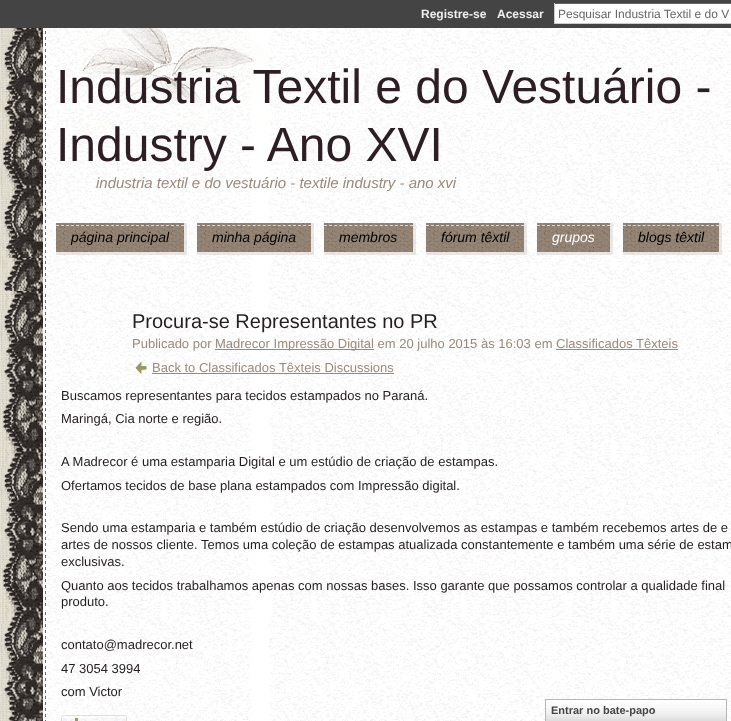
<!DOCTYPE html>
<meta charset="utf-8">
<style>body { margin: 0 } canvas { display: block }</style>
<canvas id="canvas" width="731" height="721"></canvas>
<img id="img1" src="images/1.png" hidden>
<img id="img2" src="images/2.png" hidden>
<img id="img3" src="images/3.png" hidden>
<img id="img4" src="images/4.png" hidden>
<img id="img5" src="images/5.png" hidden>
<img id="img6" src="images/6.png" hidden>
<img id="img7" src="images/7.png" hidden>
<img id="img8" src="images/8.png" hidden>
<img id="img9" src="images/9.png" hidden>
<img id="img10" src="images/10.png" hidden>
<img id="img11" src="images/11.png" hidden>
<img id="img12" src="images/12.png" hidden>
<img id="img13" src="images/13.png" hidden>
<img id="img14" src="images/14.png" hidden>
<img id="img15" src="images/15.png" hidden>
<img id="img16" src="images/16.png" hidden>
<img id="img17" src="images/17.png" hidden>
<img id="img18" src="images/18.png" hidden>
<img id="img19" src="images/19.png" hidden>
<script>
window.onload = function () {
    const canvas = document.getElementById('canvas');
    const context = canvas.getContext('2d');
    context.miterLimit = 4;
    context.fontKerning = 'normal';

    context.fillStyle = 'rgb(255, 255, 255)';
    context.fillRect(0, 0, 731, 721);
    context.drawImage(document.getElementById('img1'), 0, 28, 43, 693);
    context.fillStyle = 'rgb(68, 68, 68)';
    context.fillRect(0, 0, 731, 28);
    context.fillStyle = 'rgb(255, 255, 255)';
    context.fillRect(555, 4, 176, 19);
    context.fillStyle = 'rgb(102, 102, 102)';
    context.fillRect(554, 3, 177, 1);
    context.fillStyle = 'rgb(204, 204, 204)';
    context.fillRect(554, 23, 177, 1);
    context.fillRect(554, 3, 1, 21);
    context.drawImage(document.getElementById('img2'), 2, 28, 729, 230);
    context.drawImage(document.getElementById('img3'), 47, 28, 226, 104);
    context.drawImage(document.getElementById('img4'), 56, 223, 131, 32);
    context.drawImage(document.getElementById('img5'), 56, 223, 128, 29);
    context.beginPath();
    context.moveTo(56, 225.5);
    context.lineTo(184, 225.5);
    context.strokeStyle = 'rgb(221, 216, 201)';
    context.setLineDash([3, 2]);
    context.stroke();
    context.drawImage(document.getElementById('img6'), 197, 223, 117, 32);
    context.drawImage(document.getElementById('img7'), 197, 223, 114, 29);
    context.beginPath();
    context.moveTo(197, 225.5);
    context.lineTo(311, 225.5);
    context.setLineDash([3, 2.05]);
    context.stroke();
    context.drawImage(document.getElementById('img8'), 324, 223, 92, 32);
    context.drawImage(document.getElementById('img9'), 324, 223, 89, 29);
    context.beginPath();
    context.moveTo(324, 225.5);
    context.lineTo(413, 225.5);
    context.setLineDash([3, 2.06]);
    context.stroke();
    context.drawImage(document.getElementById('img10'), 426, 223, 101, 32);
    context.drawImage(document.getElementById('img11'), 426, 223, 98, 29);
    context.beginPath();
    context.moveTo(426, 225.5);
    context.lineTo(524, 225.5);
    context.setLineDash([3, 2]);
    context.stroke();
    context.drawImage(document.getElementById('img12'), 537, 223, 76, 32);
    context.drawImage(document.getElementById('img13'), 537, 223, 73, 29);
    context.beginPath();
    context.moveTo(537, 225.5);
    context.lineTo(610, 225.5);
    context.stroke();
    context.drawImage(document.getElementById('img14'), 623, 223, 99, 32);
    context.drawImage(document.getElementById('img15'), 623, 223, 96, 29);
    context.beginPath();
    context.moveTo(623, 225.5);
    context.lineTo(719, 225.5);
    context.setLineDash([3, 1.89]);
    context.stroke();
    context.drawImage(document.getElementById('img16'), 4, 258, 727, 33);
    context.drawImage(document.getElementById('img17'), 2, 291, 729, 430);
    context.fillStyle = 'rgb(153, 138, 124)';
    context.fillRect(215, 349, 159, 1);
    context.drawImage(document.getElementById('img18'), 135, 361, 12, 14);
    context.fillRect(152, 373, 242, 1);
    context.fillStyle = 'rgba(225, 225, 225, 0.2)';
    context.fillRect(61, 718, 66, 3);
    context.beginPath();
    context.roundRect(61.5, 715.5, 65, 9, 2.5);
    context.strokeStyle = 'rgb(228, 222, 211)';
    context.setLineDash([]);
    context.stroke();
    context.fillStyle = 'rgb(153, 153, 102)';
    context.fillRect(75, 718, 3, 3);
    context.drawImage(document.getElementById('img19'), 546, 700, 180, 21);
    context.strokeStyle = 'rgb(183, 183, 183)';
    context.strokeRect(545.5, 699.5, 181, 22);
    context.font = 'bold 12px Liberation Sans';
    context.fillStyle = 'rgb(238, 238, 238)';
    context.fillText('Registre-se', 421, 18);
    context.fillText('Acessar', 497, 18);
    context.font = '12px Liberation Sans';
    context.fillStyle = 'rgb(102, 102, 102)';
    context.fillText('Pesquisar Industria Textil e do V', 558, 18);
    context.font = '48px Liberation Sans';
    context.fillStyle = 'rgb(44, 30, 36)';
    context.fillText('Industria Textil e do Vestuário -', 56, 103);
    context.fillText('Industry - Ano XVI', 56, 161);
    context.font = 'italic 15px Liberation Sans';
    context.fillStyle = 'rgb(154, 138, 124)';
    context.fillText('industria textil e do vestuário - textile industry - ano xvi', 96, 188);
    context.font = 'italic 14px Liberation Sans';
    context.fillStyle = 'rgb(0, 0, 0)';
    context.fillText('página principal', 71, 242);
    context.fillText('minha página', 212, 242);
    context.fillText('membros', 339, 242);
    context.fillText('fórum têxtil', 441, 242);
    context.fillStyle = 'rgb(255, 255, 255)';
    context.fillText('grupos', 552, 242);
    context.fillStyle = 'rgb(0, 0, 0)';
    context.fillText('blogs têxtil', 638, 242);
    context.font = '20px Liberation Sans';
    context.fillStyle = 'rgb(36, 30, 30)';
    context.fillText('Procura-se Representantes no PR', 132, 328);
    context.font = '13px Liberation Sans';
    context.fillStyle = 'rgb(154, 138, 124)';
    context.fillText('Publicado por', 132, 348);
    context.fillText('Madrecor Impressão Digital em 20 julho 2015 às 16:03 em Classificados Têxteis', 215, 348);
    context.fillStyle = 'rgb(153, 138, 124)';
    context.fillRect(556, 349, 122, 1);
    context.fillStyle = 'rgb(154, 138, 124)';
    context.fillText('Back to Classificados Têxteis Discussions', 152, 372);
    context.fillStyle = 'rgb(36, 30, 30)';
    context.fillText('Buscamos representantes para tecidos estampados no Paraná.', 61, 400);
    context.fillText('Maringá, Cia norte e região.', 61, 423);
    context.fillText('A Madrecor é uma estamparia Digital e um estúdio de criação de estampas.', 61, 466);
    context.fillText('Ofertamos tecidos de base plana estampados com Impressão digital.', 61, 490);
    context.fillText('Sendo uma estamparia e também estúdio de criação desenvolvemos as estampas e também recebemos artes de e', 61, 532);
    context.fillText('artes de nossos cliente. Temos uma coleção de estampas atualizada constantemente e também uma série de estam', 61, 549);
    context.fillText('exclusivas.', 61, 566);
    context.fillText('Quanto aos tecidos trabalhamos apenas com nossas bases. Isso garante que possamos controlar a qualidade final', 61, 590);
    context.fillText('produto.', 61, 606);
    context.fillText('contato@madrecor.net', 61, 649);
    context.fillText('47 3054 3994', 61, 673);
    context.fillText('com Victor', 61, 696);
    context.font = 'bold 11px Liberation Sans';
    context.fillStyle = 'rgb(69, 69, 69)';
    context.fillText('Entrar no bate-papo', 551, 714);
};
</script>
